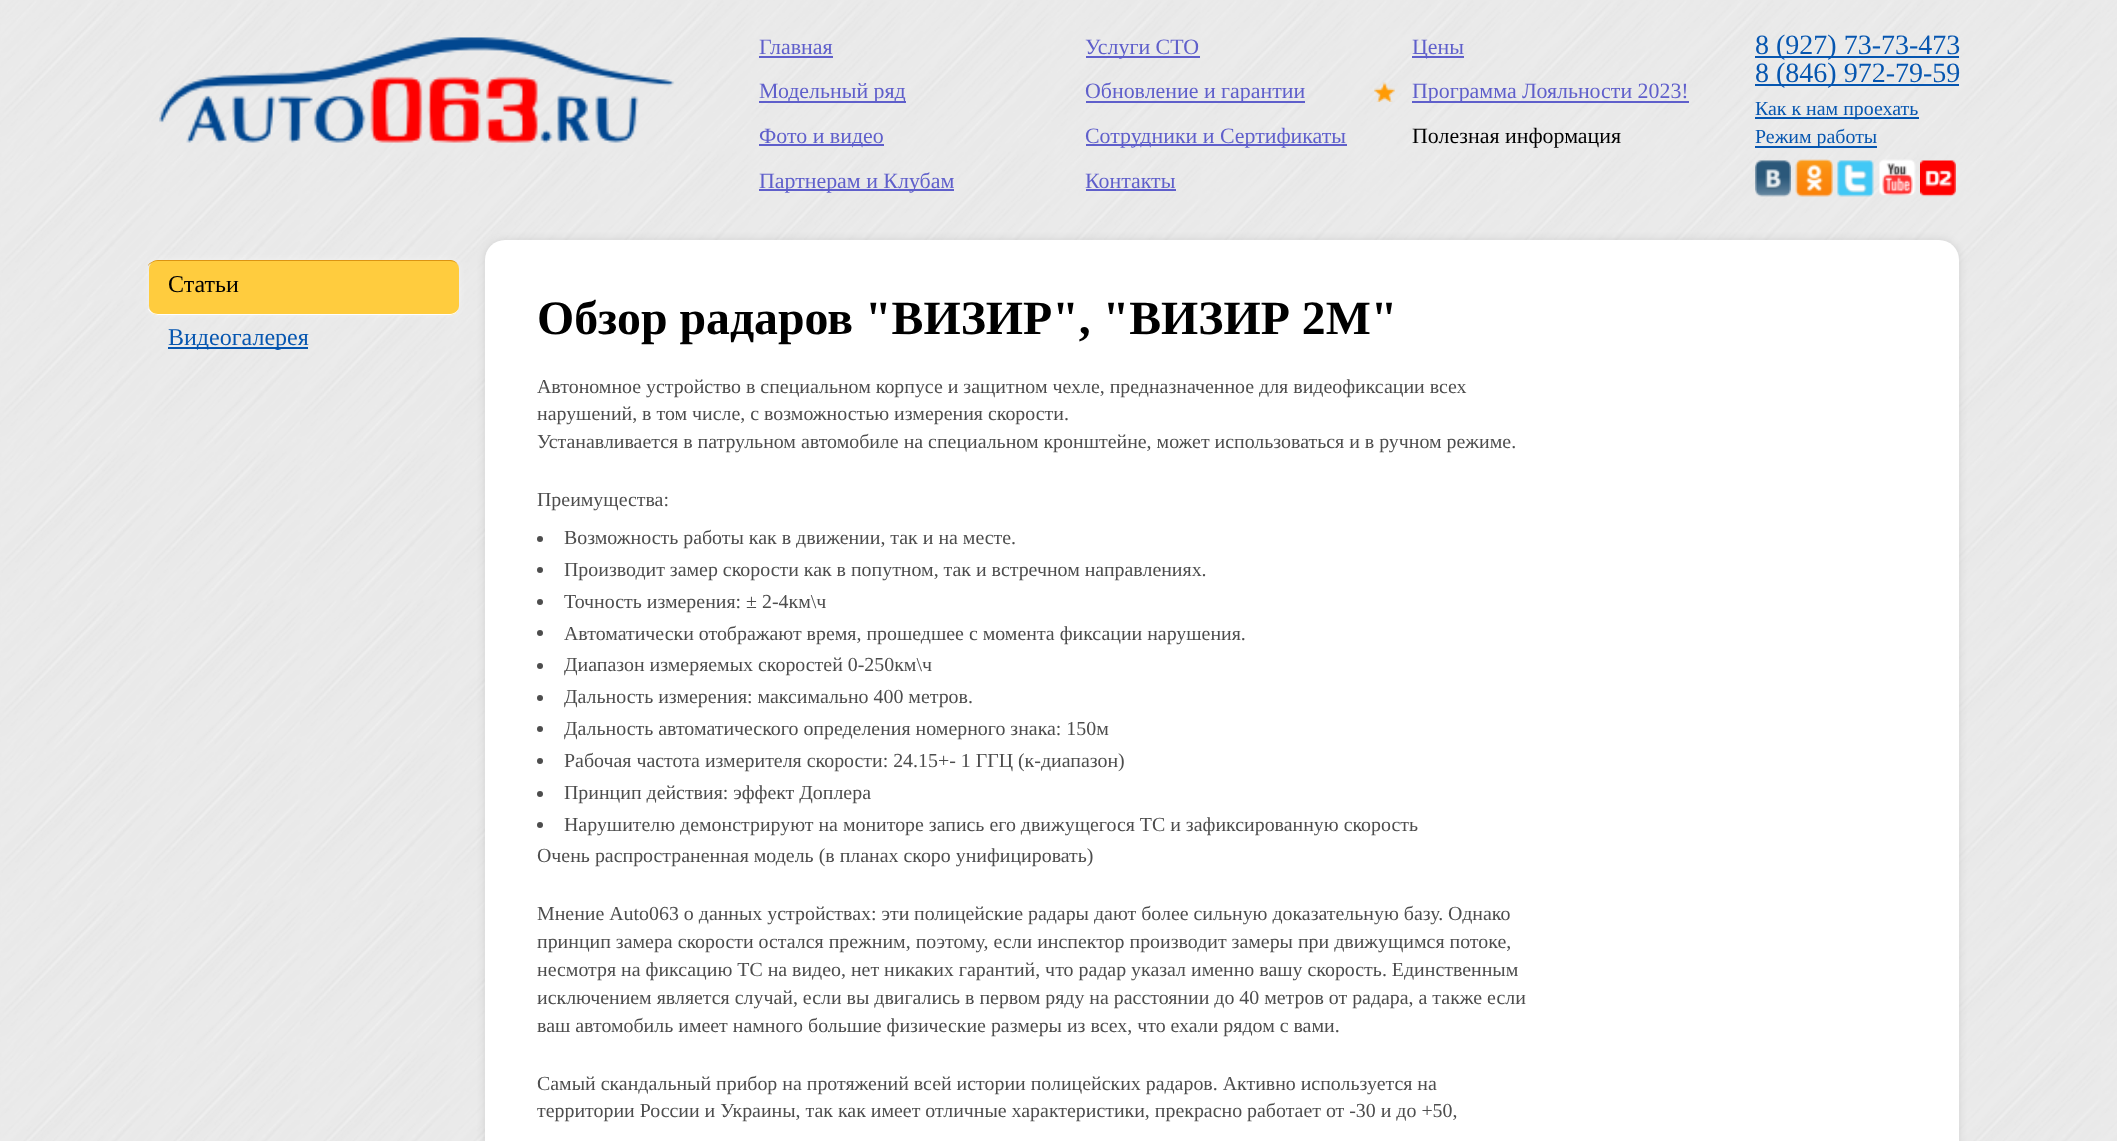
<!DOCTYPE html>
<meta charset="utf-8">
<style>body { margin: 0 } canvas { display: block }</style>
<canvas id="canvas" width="2117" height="1141"></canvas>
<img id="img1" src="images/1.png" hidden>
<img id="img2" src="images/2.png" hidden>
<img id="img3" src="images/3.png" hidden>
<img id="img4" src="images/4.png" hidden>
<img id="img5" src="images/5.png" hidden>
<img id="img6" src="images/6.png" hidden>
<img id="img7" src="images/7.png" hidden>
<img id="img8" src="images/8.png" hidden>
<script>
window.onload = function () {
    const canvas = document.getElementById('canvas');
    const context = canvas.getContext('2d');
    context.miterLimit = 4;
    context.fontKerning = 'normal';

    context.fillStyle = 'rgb(255, 255, 255)';
    context.fillRect(0, 0, 2117, 1141);
    context.drawImage(document.getElementById('img1'), 0, 0, 2117, 1141);
    context.drawImage(document.getElementById('img2'), 159, 37, 515, 106);
    context.fillStyle = 'rgb(95, 95, 203)';
    context.fillRect(759, 56, 74, 2);
    context.fillRect(1086, 56, 114, 2);
    context.fillRect(1412, 56, 52, 2);
    context.fillRect(759, 101, 147, 2);
    context.fillRect(1086, 101, 219, 2);
    context.drawImage(document.getElementById('img3'), 1374, 82, 21, 20);
    context.fillRect(1412, 101, 277, 2);
    context.fillRect(759, 144, 125, 2);
    context.fillRect(1086, 144, 261, 2);
    context.fillRect(759, 189, 195, 2);
    context.fillRect(1086, 189, 90, 2);
    context.fillStyle = 'rgb(6, 86, 176)';
    context.fillRect(1755, 56, 204, 2);
    context.fillRect(1755, 84, 204, 2);
    context.fillRect(1755, 117, 164, 2);
    context.fillRect(1755, 146, 122, 2);
    context.drawImage(document.getElementById('img4'), 1755, 160, 36, 37);
    context.drawImage(document.getElementById('img5'), 1795, 159, 38, 38);
    context.drawImage(document.getElementById('img6'), 1837, 160, 37, 37);
    context.drawImage(document.getElementById('img7'), 1879, 159, 37, 37);
    context.drawImage(document.getElementById('img8'), 1920, 160, 36, 37);
    context.fillStyle = 'rgba(255, 255, 255, 0.4)';
    context.filter = 'blur(4px)';
    context.beginPath();
    context.roundRect(149, 260, 310, 55, 9);
    context.fill();
    context.filter = 'none';
    context.fillStyle = 'rgb(255, 204, 62)';
    context.beginPath();
    context.roundRect(149, 260, 310, 55, 9);
    context.fill();
    context.fillStyle = 'rgb(219, 148, 18)';
    context.beginPath();
    context.moveTo(158, 260);
    context.lineTo(450, 260);
    context.bezierCurveTo(455, 260, 459, 264, 459, 268);
    context.bezierCurveTo(459, 264, 455, 261, 450, 261);
    context.lineTo(158, 261);
    context.bezierCurveTo(154, 261, 150, 263, 148, 266);
    context.bezierCurveTo(148, 263, 155, 260, 158, 260);
    context.closePath();
    context.fill();
    context.fillStyle = 'rgb(255, 255, 255)';
    context.beginPath();
    context.moveTo(450, 315);
    context.bezierCurveTo(455, 315, 459, 311, 459, 306);
    context.bezierCurveTo(459, 310, 455, 314, 450, 314);
    context.lineTo(158, 314);
    context.bezierCurveTo(154, 314, 150, 311, 148, 308);
    context.bezierCurveTo(148, 312, 155, 315, 158, 315);
    context.closePath();
    context.fill();
    context.fillStyle = 'rgb(6, 86, 176)';
    context.fillRect(168, 347, 140, 2);
    context.fillStyle = 'rgba(0, 0, 0, 0.1)';
    context.filter = 'blur(4px)';
    context.beginPath();
    context.roundRect(485, 240, 1474, 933, 20);
    context.fill();
    context.filter = 'none';
    context.fillStyle = 'rgb(255, 255, 255)';
    context.beginPath();
    context.roundRect(485, 240, 1474, 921, 20);
    context.fill();
    context.fillStyle = 'rgb(77, 77, 77)';
    context.beginPath();
    context.arc(540, 539, 3, 0, 2 * Math.PI);
    context.fill();
    context.beginPath();
    context.arc(540, 570, 3, 0, 2 * Math.PI);
    context.fill();
    context.beginPath();
    context.arc(540, 602, 3, 0, 2 * Math.PI);
    context.fill();
    context.beginPath();
    context.arc(540, 633, 3, 0, 2 * Math.PI);
    context.fill();
    context.beginPath();
    context.arc(540, 666, 3, 0, 2 * Math.PI);
    context.fill();
    context.beginPath();
    context.arc(540, 698, 3, 0, 2 * Math.PI);
    context.fill();
    context.beginPath();
    context.arc(540, 729, 3, 0, 2 * Math.PI);
    context.fill();
    context.beginPath();
    context.arc(540, 761, 3, 0, 2 * Math.PI);
    context.fill();
    context.beginPath();
    context.arc(540, 794, 3, 0, 2 * Math.PI);
    context.fill();
    context.beginPath();
    context.arc(540, 825, 3, 0, 2 * Math.PI);
    context.fill();
    context.font = '21.9px Liberation Serif';
    context.fillStyle = 'rgb(95, 95, 203)';
    context.fillText('Главная', 759, 54);
    context.fillText('Услуги СТО', 1085, 54);
    context.fillText('Цены', 1412, 54);
    context.fillText('Модельный ряд', 759, 98);
    context.fillText('Обновление и гарантии', 1085, 98);
    context.fillText('Программа Лояльности 2023!', 1412, 98);
    context.fillText('Фото и видео', 759, 143);
    context.fillText('Сотрудники и Сертификаты', 1085, 143);
    context.fillStyle = 'rgb(0, 0, 0)';
    context.fillText('Полезная информация', 1412, 143);
    context.fillStyle = 'rgb(95, 95, 203)';
    context.fillText('Партнерам и Клубам', 759, 188);
    context.fillText('Контакты', 1085, 188);
    context.font = '28px Liberation Serif';
    context.fillStyle = 'rgb(6, 86, 176)';
    context.fillText('8 (927) 73-73-473', 1755, 54);
    context.fillText('8 (846) 972-79-59', 1755, 82);
    context.font = '19.9px Liberation Serif';
    context.fillText('Как к нам проехать', 1755, 115);
    context.fillText('Режим работы', 1755, 143);
    context.font = '24px Liberation Serif';
    context.fillStyle = 'rgb(0, 0, 0)';
    context.fillText('Статьи', 168, 292);
    context.fillStyle = 'rgb(6, 86, 176)';
    context.fillText('Видеогалерея', 168, 345);
    context.font = 'bold 47.8px Liberation Serif';
    context.fillStyle = 'rgb(0, 0, 0)';
    context.fillText('Обзор радаров "ВИЗИР", "ВИЗИР 2М"', 537, 334);
    context.font = '19.9px Liberation Serif';
    context.fillStyle = 'rgb(77, 77, 77)';
    context.fillText('Автономное устройство в специальном корпусе и защитном чехле, предназначенное для видеофиксации всех', 537, 393);
    context.fillText('нарушений, в том числе, с возможностью измерения скорости.', 537, 420);
    context.fillText('Устанавливается в патрульном автомобиле на специальном кронштейне, может использоваться и в ручном режиме.', 537, 448);
    context.fillText('Преимущества:', 537, 506);
    context.fillText('Возможность работы как в движении, так и на месте.', 564, 544);
    context.fillText('Производит замер скорости как в попутном, так и встречном направлениях.', 564, 576);
    context.fillText('Точность измерения: ± 2-4км\\ч', 564, 608);
    context.fillText('Автоматически отображают время, прошедшее с момента фиксации нарушения.', 564, 640);
    context.fillText('Диапазон измеряемых скоростей 0-250км\\ч', 564, 671);
    context.fillText('Дальность измерения: максимально 400 метров.', 564, 703);
    context.fillText('Дальность автоматического определения номерного знака: 150м', 564, 735);
    context.fillText('Рабочая частота измерителя скорости: 24.15+- 1 ГГЦ (к-диапазон)', 564, 767);
    context.fillText('Принцип действия: эффект Доплера', 564, 799);
    context.fillText('Нарушителю демонстрируют на мониторе запись его движущегося ТС и зафиксированную скорость', 564, 831);
    context.fillText('Очень распространенная модель (в планах скоро унифицировать)', 537, 862);
    context.fillText('Мнение Auto063 о данных устройствах: эти', 537, 920);
    context.fillText('полицейские радары дают более сильную доказательную базу. Однако', 914, 920);
    context.fillText('принцип замера скорости остался прежним, поэтому, если инспектор производит замеры при движущимся потоке,', 537, 948);
    context.fillText('несмотря на фиксацию ТС на видео, нет никаких гарантий, что радар указал именно вашу скорость. Единственным', 537, 976);
    context.fillText('исключением является случай, если вы двигались в первом ряду на расстоянии до 40 метров от радара, а также если', 537, 1004);
    context.fillText('ваш автомобиль имеет намного большие физические размеры из всех, что ехали рядом с вами.', 537, 1032);
    context.fillText('Самый скандальный прибор на протяжений всей истории полицейских радаров. Активно используется на', 537, 1090);
    context.fillText('территории России и Украины, так как имеет отличные характеристики, прекрасно работает от -30 и до +50,', 537, 1117);
};
</script>
